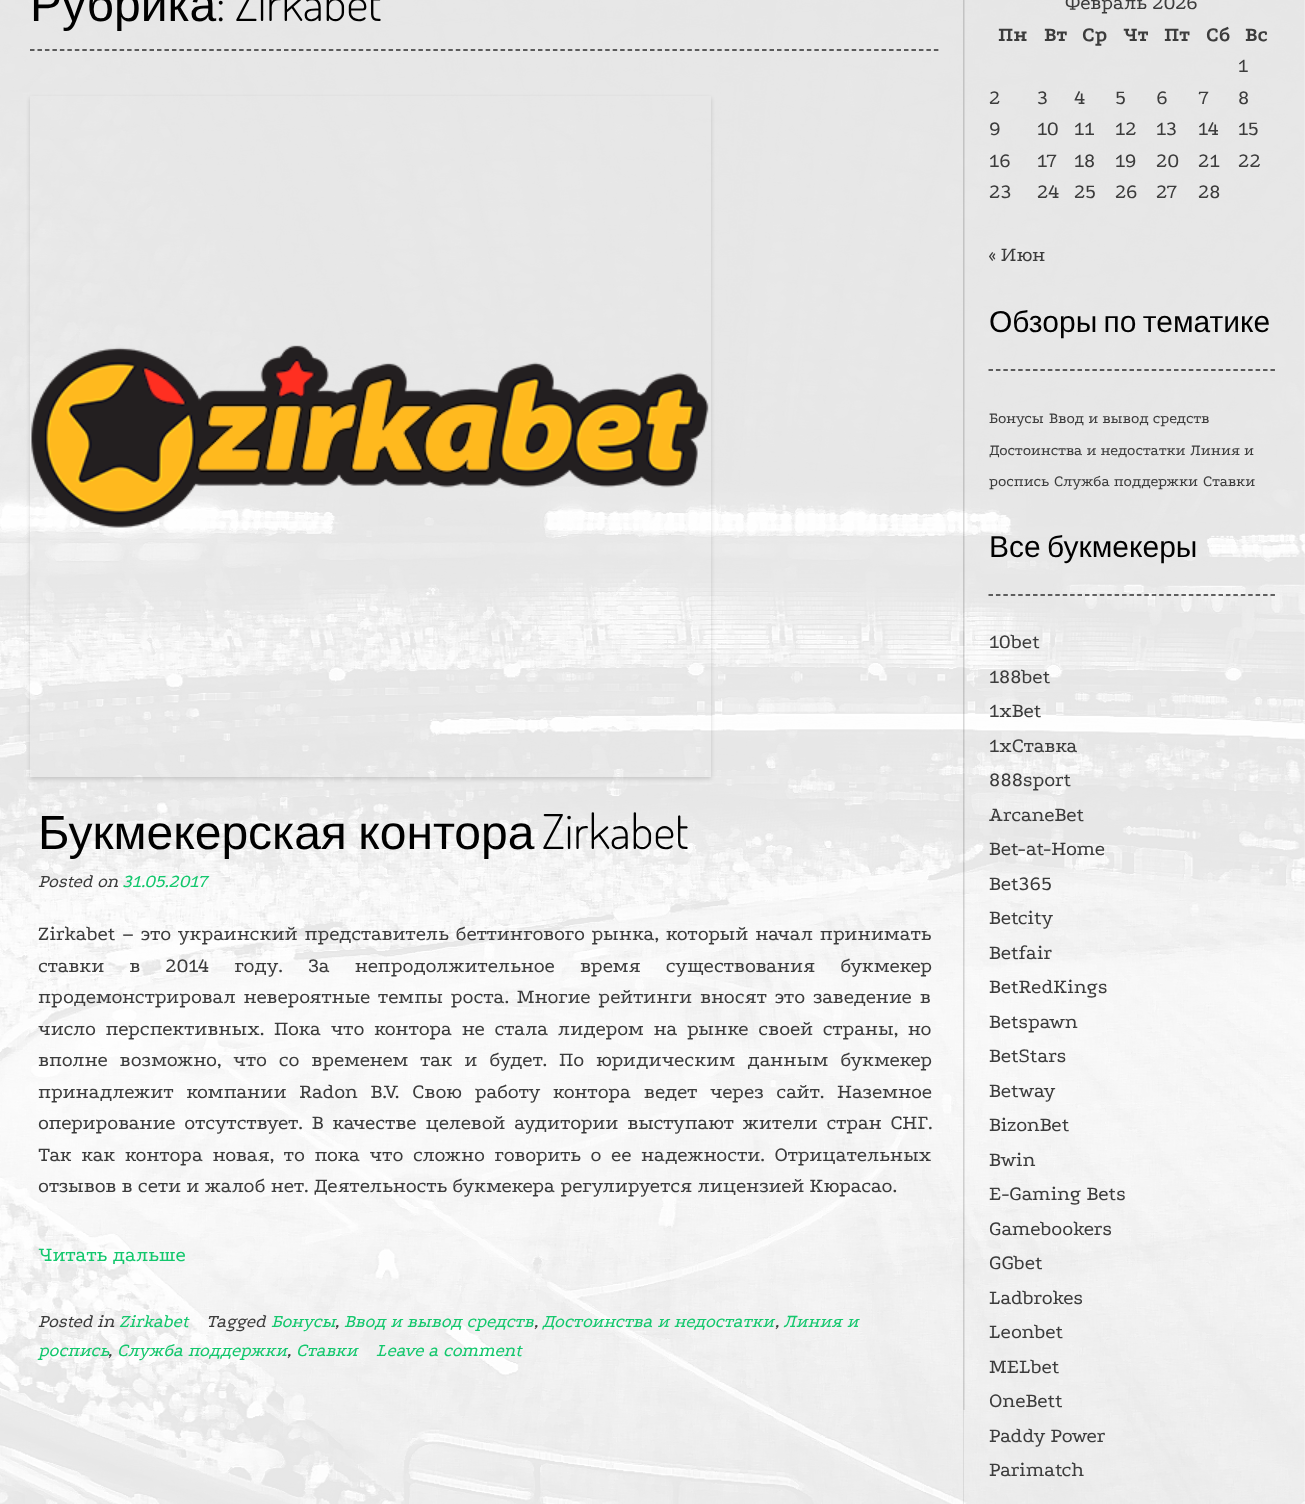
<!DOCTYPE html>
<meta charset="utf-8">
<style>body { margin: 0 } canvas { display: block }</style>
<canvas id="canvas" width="1305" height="1504"></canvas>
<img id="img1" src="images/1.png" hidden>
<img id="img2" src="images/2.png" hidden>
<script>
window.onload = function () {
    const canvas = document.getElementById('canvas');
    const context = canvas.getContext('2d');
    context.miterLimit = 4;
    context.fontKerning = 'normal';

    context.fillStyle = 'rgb(255, 255, 255)';
    context.fillRect(0, 0, 1305, 1504);
    context.drawImage(document.getElementById('img1'), 0, 0, 1305, 1504);
    context.fillStyle = 'rgba(0, 0, 0, 0.08)';
    context.fillRect(963, 0, 1, 1504);
    context.fillRect(963, 0, 2, 1410);
    context.beginPath();
    context.moveTo(30, 50);
    context.lineTo(939, 50);
    context.strokeStyle = 'rgb(46, 46, 46)';
    context.lineWidth = 1.5;
    context.setLineDash([4.5, 2.97]);
    context.stroke();
    context.save();
    context.beginPath();
    context.moveTo(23, 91);
    context.lineTo(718, 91);
    context.lineTo(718, 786);
    context.lineTo(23, 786);
    context.closePath();
    context.moveTo(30, 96);
    context.lineTo(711, 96);
    context.lineTo(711, 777);
    context.lineTo(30, 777);
    context.closePath();
    context.clip('evenodd');
    context.fillStyle = 'rgba(0, 0, 0, 0.15)';
    context.filter = 'blur(2px)';
    context.beginPath();
    context.rect(30, 98, 681, 681);
    context.fill();
    context.filter = 'none';
    context.restore();
    context.drawImage(document.getElementById('img2'), 31, 345, 678, 183);
    context.beginPath();
    context.moveTo(988.5, 370);
    context.lineTo(1275, 370);
    context.setLineDash([4.5, 2.92]);
    context.stroke();
    context.beginPath();
    context.moveTo(988.5, 595);
    context.lineTo(1275, 595);
    context.strokeStyle = 'rgba(0, 0, 0, 0.8)';
    context.stroke();
    context.font = '48px Liberation Sans';
    context.fillStyle = 'rgb(0, 0, 0)';
    context.fillText('Рубрика', 30, 21);
    context.font = '300 48px Dosis';
    context.fillText(': Zirkabet', 216, 21);
    context.wordSpacing = '-2px';
    context.font = '48px Liberation Sans';
    context.fillText('Букмекерская контора', 38, 849);
    context.wordSpacing = '0px';
    context.font = '300 48px Dosis';
    context.fillText('Zirkabet', 542, 849);
    context.font = 'italic 18.9px Podkova';
    context.fillStyle = 'rgb(60, 60, 60)';
    context.fillText('Posted on', 38, 887);
    context.fillStyle = 'rgb(19, 199, 109)';
    context.fillText('31.05.2017', 122, 887);
    context.wordSpacing = '1.5px';
    context.font = '21px Podkova';
    context.fillStyle = 'rgb(60, 60, 60)';
    context.fillText('Zirkabet – это украинский представитель беттингового рынка, который начал принимать', 38, 940);
    context.wordSpacing = '19.75px';
    context.fillText('ставки в 2014 году. За непродолжительное время существования букмекер', 38, 972);
    context.wordSpacing = '2.5px';
    context.fillText('продемонстрировал невероятные темпы роста. Многие рейтинги вносят это заведение в', 38, 1003);
    context.wordSpacing = '4.25px';
    context.fillText('число перспективных. Пока что контора не стала лидером на рынке своей страны, но', 38, 1035);
    context.wordSpacing = '6.5px';
    context.fillText('вполне возможно, что со временем так и будет. По юридическим данным букмекер', 38, 1066);
    context.wordSpacing = '7.5px';
    context.fillText('принадлежит компании Radon B.V. Свою работу контора ведет через сайт. Наземное', 38, 1098);
    context.wordSpacing = '3.5px';
    context.fillText('оперирование отсутствует. В качестве целевой аудитории выступают жители стран СНГ.', 38, 1129);
    context.wordSpacing = '4.25px';
    context.fillText('Так как контора новая, то пока что сложно говорить о ее надежности. Отрицательных', 38, 1161);
    context.wordSpacing = '0px';
    context.fillText('отзывов в сети и жалоб нет. Деятельность букмекера регулируется лицензией Кюрасао.', 38, 1192);
    context.fillStyle = 'rgb(19, 199, 109)';
    context.fillText('Читать дальше', 38, 1261);
    context.font = 'italic 18.9px Podkova';
    context.fillStyle = 'rgb(60, 60, 60)';
    context.fillText('Posted in', 38, 1327);
    context.fillStyle = 'rgb(19, 199, 109)';
    context.fillText('Zirkabet', 119, 1327);
    context.fillStyle = 'rgb(60, 60, 60)';
    context.fillText('Tagged', 206, 1327);
    context.fillStyle = 'rgb(19, 199, 109)';
    context.fillText('Бонусы', 271, 1327);
    context.fillStyle = 'rgb(60, 60, 60)';
    context.fillText(',', 335, 1327);
    context.fillStyle = 'rgb(19, 199, 109)';
    context.fillText('Ввод и вывод средств', 344, 1327);
    context.fillStyle = 'rgb(60, 60, 60)';
    context.fillText(',', 534, 1327);
    context.fillStyle = 'rgb(19, 199, 109)';
    context.fillText('Достоинства и недостатки', 542, 1327);
    context.fillStyle = 'rgb(60, 60, 60)';
    context.fillText(',', 775, 1327);
    context.fillStyle = 'rgb(19, 199, 109)';
    context.fillText('Линия и', 783, 1327);
    context.fillText('роспись', 38, 1356);
    context.fillStyle = 'rgb(60, 60, 60)';
    context.fillText(',', 108, 1356);
    context.fillStyle = 'rgb(19, 199, 109)';
    context.fillText('Служба поддержки', 117, 1356);
    context.fillText('Ставки', 296, 1356);
    context.fillText('Leave a comment', 376, 1356);
    context.fillStyle = 'rgb(60, 60, 60)';
    context.fillText(',', 287, 1356);
    context.font = '21px Podkova';
    context.fillText('Февраль 2026', 1065, 9);
    context.font = 'bold 21px Podkova';
    context.fillText('Пн', 998, 41);
    context.fillText('Вт', 1044, 41);
    context.fillText('Ср', 1082, 41);
    context.fillText('Чт', 1123, 41);
    context.fillText('Пт', 1164, 41);
    context.fillText('Сб', 1206, 41);
    context.fillText('Вс', 1245, 41);
    context.font = '21px Podkova';
    context.fillText('1', 1238, 72);
    context.fillText('2', 989, 104);
    context.fillText('3', 1037, 104);
    context.fillText('4', 1074, 104);
    context.fillText('5', 1115, 104);
    context.fillText('6', 1156, 104);
    context.fillText('7', 1198, 104);
    context.fillText('8', 1238, 104);
    context.fillText('9', 989, 135);
    context.fillText('10', 1037, 135);
    context.fillText('11', 1074, 135);
    context.fillText('12', 1115, 135);
    context.fillText('13', 1156, 135);
    context.fillText('14', 1198, 135);
    context.fillText('15', 1238, 135);
    context.fillText('16', 989, 167);
    context.fillText('17', 1037, 167);
    context.fillText('18', 1074, 167);
    context.fillText('19', 1115, 167);
    context.fillText('20', 1156, 167);
    context.fillText('21', 1198, 167);
    context.fillText('22', 1238, 167);
    context.fillText('23', 989, 198);
    context.fillText('24', 1037, 198);
    context.fillText('25', 1074, 198);
    context.fillText('26', 1115, 198);
    context.fillText('27', 1156, 198);
    context.fillText('28', 1198, 198);
    context.fillText('« Июн', 989, 261);
    context.wordSpacing = '-2px';
    context.font = '30px Liberation Sans';
    context.fillStyle = 'rgb(0, 0, 0)';
    context.fillText('Обзоры по тематике', 989, 332);
    context.wordSpacing = '0px';
    context.font = '16px Podkova';
    context.fillStyle = 'rgb(60, 60, 60)';
    context.fillText('Бонусы', 989, 423);
    context.fillText('Ввод и вывод средств', 1049, 423);
    context.fillText('Достоинства и недостатки', 989, 455);
    context.fillText('Линия и', 1190, 455);
    context.fillText('роспись', 989, 486);
    context.fillText('Служба поддержки', 1054, 486);
    context.fillText('Ставки', 1203, 486);
    context.wordSpacing = '-2px';
    context.font = '30px Liberation Sans';
    context.fillStyle = 'rgb(0, 0, 0)';
    context.fillText('Все букмекеры', 989, 557);
    context.wordSpacing = '0px';
    context.font = '21px Podkova';
    context.fillStyle = 'rgb(60, 60, 60)';
    context.fillText('10bet', 989, 648);
    context.fillText('188bet', 989, 683);
    context.fillText('1xBet', 989, 717);
    context.fillText('1хСтавка', 989, 752);
    context.fillText('888sport', 989, 786);
    context.fillText('ArcaneBet', 989, 821);
    context.fillText('Bet-at-Home', 989, 855);
    context.fillText('Bet365', 989, 890);
    context.fillText('Betcity', 989, 924);
    context.fillText('Betfair', 989, 959);
    context.fillText('BetRedKings', 989, 993);
    context.fillText('Betspawn', 989, 1028);
    context.fillText('BetStars', 989, 1062);
    context.fillText('Betway', 989, 1097);
    context.fillText('BizonBet', 989, 1131);
    context.fillText('Bwin', 989, 1166);
    context.fillText('E-Gaming Bets', 989, 1200);
    context.fillText('Gamebookers', 989, 1235);
    context.fillText('GGbet', 989, 1269);
    context.fillText('Ladbrokes', 989, 1304);
    context.fillText('Leonbet', 989, 1338);
    context.fillText('MELbet', 989, 1373);
    context.fillText('OneBett', 989, 1407);
    context.fillText('Paddy Power', 989, 1442);
    context.fillText('Parimatch', 989, 1476);
};
</script>
